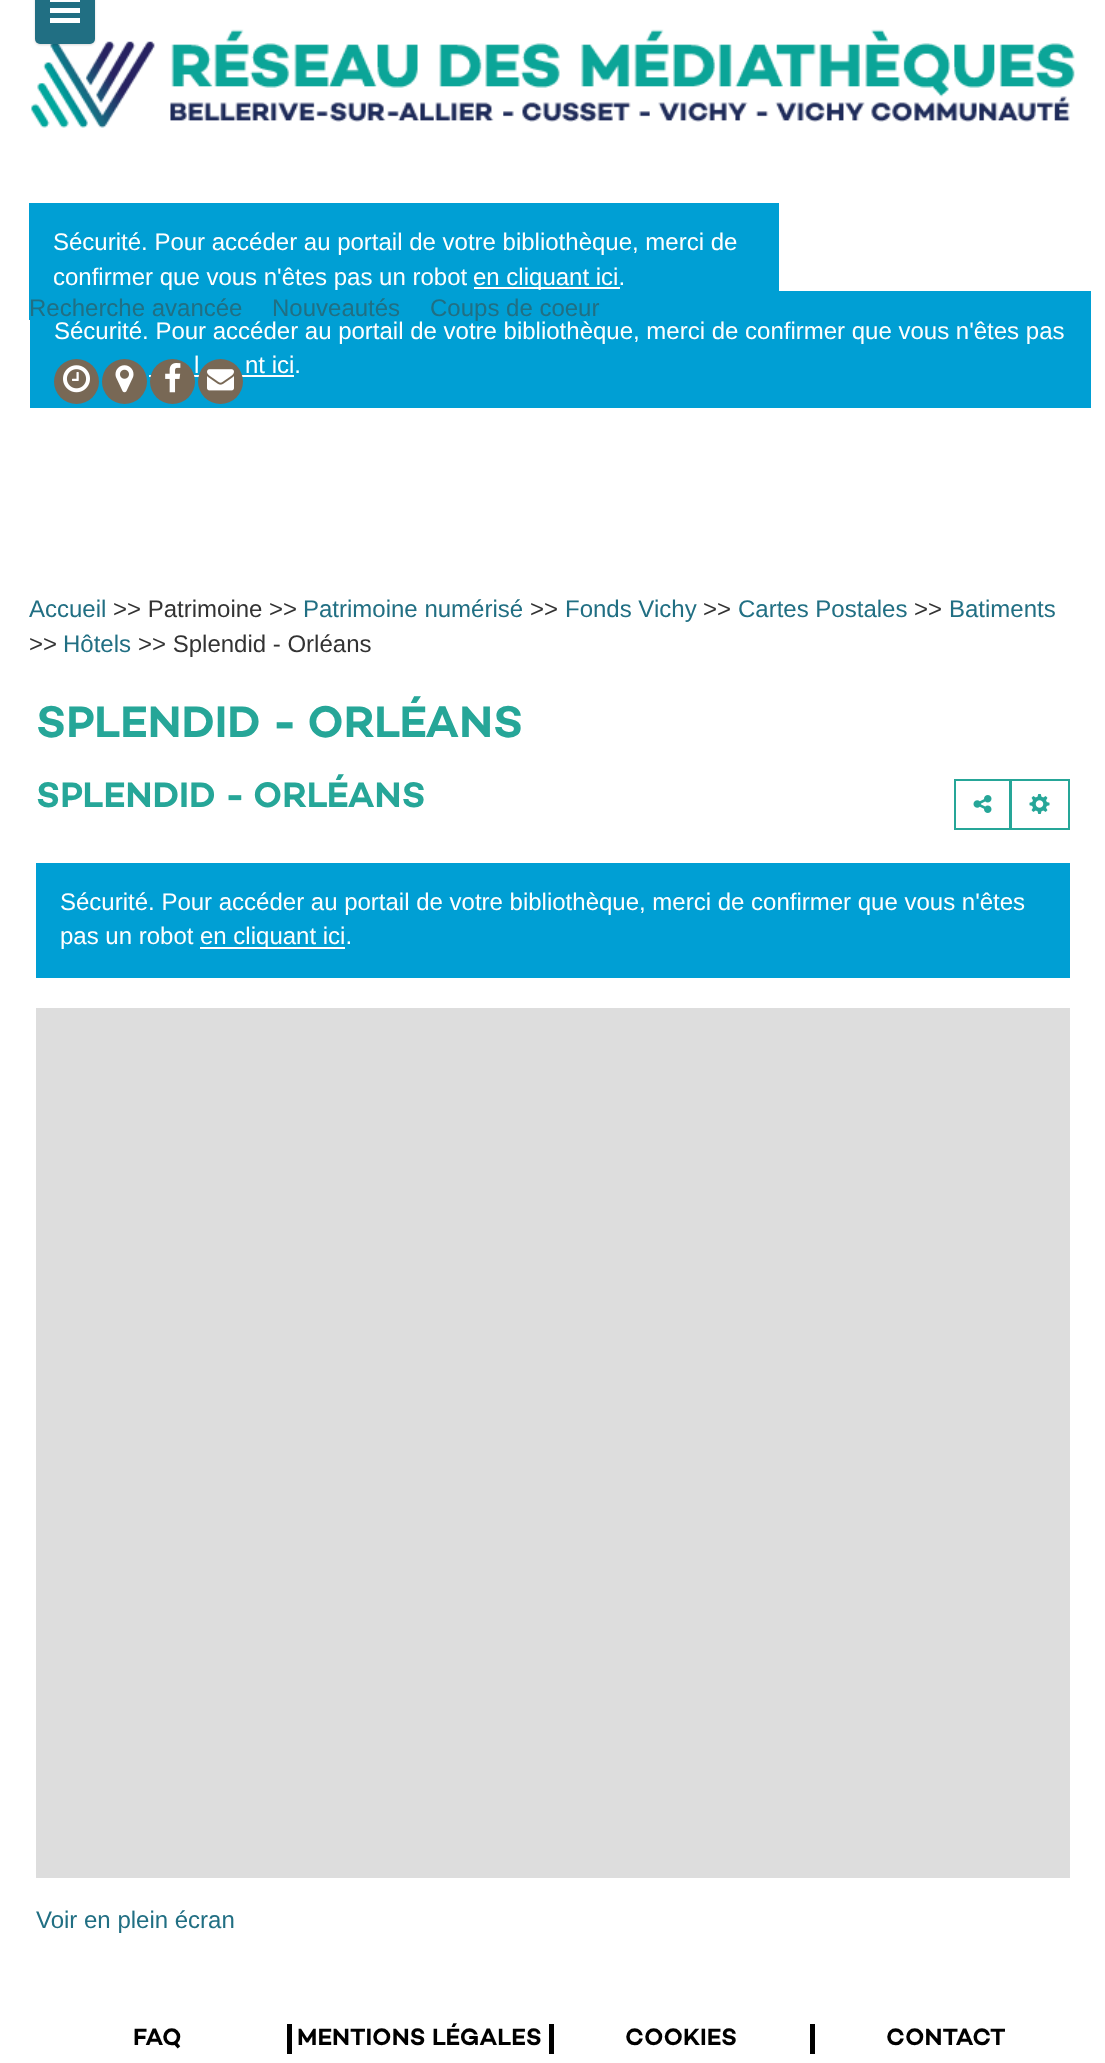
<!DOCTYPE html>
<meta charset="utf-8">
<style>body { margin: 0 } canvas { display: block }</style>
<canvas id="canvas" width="1105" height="2063"></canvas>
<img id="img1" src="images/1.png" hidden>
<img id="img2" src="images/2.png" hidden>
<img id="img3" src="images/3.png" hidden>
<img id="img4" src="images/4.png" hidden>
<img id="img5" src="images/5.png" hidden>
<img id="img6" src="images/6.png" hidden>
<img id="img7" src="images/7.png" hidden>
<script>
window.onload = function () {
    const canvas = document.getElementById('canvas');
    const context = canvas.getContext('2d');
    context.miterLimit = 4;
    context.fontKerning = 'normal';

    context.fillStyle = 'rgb(255, 255, 255)';
    context.fillRect(0, 0, 1105, 2063);
    context.fillStyle = 'rgb(0, 159, 212)';
    context.fillRect(30, 291, 1061, 117);
    context.fillRect(29, 203, 750, 117);
    context.fillStyle = 'rgb(255, 255, 255)';
    context.fillRect(474, 287, 146, 2);
    context.fillStyle = 'rgb(120, 104, 85)';
    context.beginPath();
    context.arc(76.5, 381.5, 22.5, 0, 2 * Math.PI);
    context.fill();
    context.drawImage(document.getElementById('img1'), 63, 365, 27, 28);
    context.beginPath();
    context.arc(124.5, 381.5, 22.5, 0, 2 * Math.PI);
    context.fill();
    context.drawImage(document.getElementById('img2'), 115, 365, 19, 28);
    context.fillStyle = 'rgb(255, 255, 255)';
    context.fillRect(149, 375, 145, 2);
    context.fillStyle = 'rgb(120, 104, 85)';
    context.beginPath();
    context.arc(172.5, 381.5, 22.5, 0, 2 * Math.PI);
    context.fill();
    context.drawImage(document.getElementById('img3'), 165, 363, 16, 30);
    context.beginPath();
    context.arc(220.5, 381.5, 22.5, 0, 2 * Math.PI);
    context.fill();
    context.drawImage(document.getElementById('img4'), 207, 369, 27, 22);
    context.drawImage(document.getElementById('img5'), 31, 29, 1044, 99);
    context.fillStyle = 'rgba(0, 0, 0, 0.15)';
    context.filter = 'blur(1px)';
    context.beginPath();
    context.roundRect(35, -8, 60, 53, 5);
    context.fill();
    context.filter = 'none';
    context.fillStyle = 'rgb(33, 111, 131)';
    context.beginPath();
    context.roundRect(35, -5, 60, 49, 5);
    context.fill();
    context.fillStyle = 'rgb(255, 255, 255)';
    context.fillRect(50, 0, 30, 2);
    context.fillRect(50, 8, 30, 5);
    context.fillRect(50, 18, 30, 5);
    context.strokeStyle = 'rgb(38, 166, 152)';
    context.lineWidth = 2;
    context.strokeRect(1011, 780, 58, 49);
    context.drawImage(document.getElementById('img6'), 1029, 793, 21, 21);
    context.strokeRect(955, 780, 55, 49);
    context.drawImage(document.getElementById('img7'), 973, 795, 19, 18);
    context.fillStyle = 'rgb(0, 159, 212)';
    context.fillRect(36, 863, 1034, 115);
    context.fillStyle = 'rgb(255, 255, 255)';
    context.fillRect(200, 947, 145, 2);
    context.fillStyle = 'rgb(221, 221, 221)';
    context.fillRect(36, 1008, 1034, 870);
    context.fillStyle = 'rgb(0, 0, 0)';
    context.fillRect(287, 2024, 5, 30);
    context.fillRect(549, 2024, 5, 30);
    context.fillRect(810, 2024, 5, 30);
    context.font = '24px Liberation Sans';
    context.fillStyle = 'rgb(255, 255, 255)';
    context.fillText('Sécurité. Pour accéder au portail de votre bibliothèque, merci de', 53, 250);
    context.fillText('confirmer que vous n\'êtes pas un robot', 53, 285);
    context.fillText('en cliquant ici.', 473, 285);
    context.fillStyle = 'rgb(33, 111, 131)';
    context.fillText('Recherche avancée', 29, 316);
    context.fillText('Nouveautés', 272, 316);
    context.fillText('Coups de coeur', 430, 316);
    context.fillStyle = 'rgb(255, 255, 255)';
    context.fillText('Sécurité. Pour accéder au portail de votre bibliothèque, merci de confirmer que vous n\'êtes pas', 54, 339);
    context.fillText('l', 194, 373);
    context.fillText('nt ici.', 245, 373);
    context.fillStyle = 'rgb(33, 111, 131)';
    context.fillText('Accueil', 29, 617);
    context.fillStyle = 'rgb(51, 51, 51)';
    context.fillText('>> Patrimoine >>', 113, 617);
    context.fillStyle = 'rgb(33, 111, 131)';
    context.fillText('Patrimoine numérisé', 303, 617);
    context.fillStyle = 'rgb(51, 51, 51)';
    context.fillText('>>', 530, 617);
    context.fillStyle = 'rgb(33, 111, 131)';
    context.fillText('Fonds Vichy', 565, 617);
    context.fillStyle = 'rgb(51, 51, 51)';
    context.fillText('>>', 703, 617);
    context.fillStyle = 'rgb(33, 111, 131)';
    context.fillText('Cartes Postales', 738, 617);
    context.fillStyle = 'rgb(51, 51, 51)';
    context.fillText('>>', 914, 617);
    context.fillStyle = 'rgb(33, 111, 131)';
    context.fillText('Batiments', 949, 617);
    context.fillStyle = 'rgb(51, 51, 51)';
    context.fillText('>>', 29, 652);
    context.fillStyle = 'rgb(33, 111, 131)';
    context.fillText('Hôtels', 63, 652);
    context.fillStyle = 'rgb(51, 51, 51)';
    context.fillText('>> Splendid - Orléans', 138, 652);
    context.font = '600 45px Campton';
    context.fillStyle = 'rgb(38, 166, 152)';
    context.fillText('SPLENDID - ORLÉANS', 36, 737);
    context.font = '600 36px Campton';
    context.fillText('SPLENDID - ORLÉANS', 36, 807);
    context.font = '24px Liberation Sans';
    context.fillStyle = 'rgb(255, 255, 255)';
    context.fillText('Sécurité. Pour accéder au portail de votre bibliothèque, merci de confirmer que vous n\'êtes', 60, 910);
    context.fillText('pas un robot', 60, 944);
    context.fillText('en cliquant ici.', 200, 944);
    context.fillStyle = 'rgb(33, 111, 131)';
    context.fillText('Voir en plein écran', 36, 1928);
    context.font = '600 24px Campton';
    context.fillStyle = 'rgb(0, 0, 0)';
    context.fillText('FAQ', 133, 2045);
    context.fillText('MENTIONS LÉGALES', 297, 2045);
    context.fillText('COOKIES', 625, 2045);
    context.fillText('CONTACT', 886, 2045);
};
</script>
